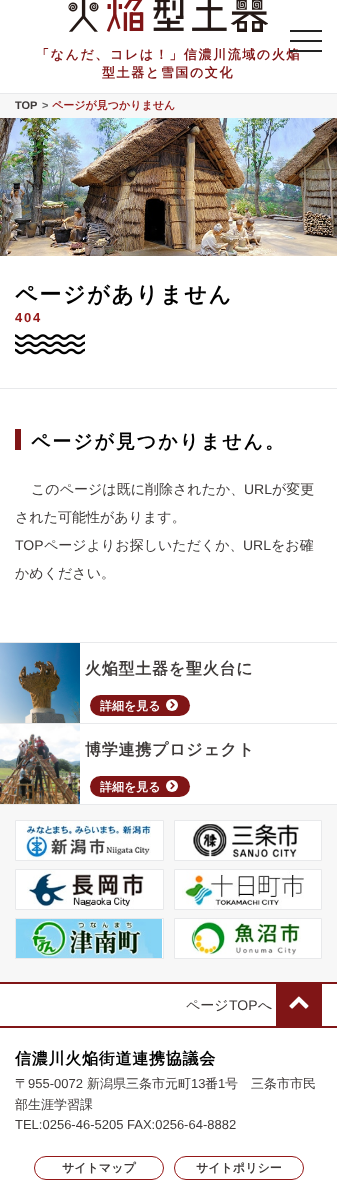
<!DOCTYPE html>
<meta charset="utf-8">
<style>body { margin: 0 } canvas { display: block }</style>
<canvas id="canvas" width="337" height="1180"></canvas>
<img id="img1" src="images/1.png" hidden>
<img id="img2" src="images/2.png" hidden>
<img id="img3" src="images/3.png" hidden>
<img id="img4" src="images/4.png" hidden>
<img id="img5" src="images/5.png" hidden>
<img id="img6" src="images/6.png" hidden>
<img id="img7" src="images/7.png" hidden>
<img id="img8" src="images/8.png" hidden>
<img id="img9" src="images/9.png" hidden>
<img id="img10" src="images/10.png" hidden>
<img id="img11" src="images/11.png" hidden>
<img id="img12" src="images/12.png" hidden>
<img id="img13" src="images/13.png" hidden>
<script>
window.onload = function () {
    const canvas = document.getElementById('canvas');
    const context = canvas.getContext('2d');
    context.miterLimit = 4;
    context.fontKerning = 'normal';

    context.fillStyle = 'rgb(255, 255, 255)';
    context.fillRect(0, 0, 337, 1180);
    context.fillStyle = 'rgb(34, 34, 34)';
    context.fillRect(290, 40, 32, 2);
    context.fillRect(290, 30, 32, 2);
    context.fillStyle = 'rgb(232, 233, 235)';
    context.fillRect(0, 93, 337, 1);
    context.drawImage(document.getElementById('img1'), 68, 0, 200, 32);
    context.fillStyle = 'rgb(247, 247, 247)';
    context.fillRect(0, 94, 337, 24);
    context.fillStyle = 'rgb(232, 233, 235)';
    context.fillRect(0, 388, 337, 1);
    context.drawImage(document.getElementById('img2'), 0, 118, 337, 138);
    context.drawImage(document.getElementById('img3'), 15, 334, 70, 21);
    context.fillStyle = 'rgb(128, 21, 22)';
    context.fillRect(15, 429, 6, 21);
    context.fillStyle = 'rgb(232, 233, 235)';
    context.fillRect(0, 642, 337, 1);
    context.fillRect(0, 723, 337, 1);
    context.drawImage(document.getElementById('img4'), 0, 643, 80, 80);
    context.fillStyle = 'rgb(128, 21, 22)';
    context.beginPath();
    context.roundRect(90, 695, 100, 21, 10.5);
    context.fill();
    context.fillStyle = 'rgb(255, 255, 255)';
    context.beginPath();
    context.arc(172, 705, 6, 0, 2 * Math.PI);
    context.fill();
    context.drawImage(document.getElementById('img5'), 170, 701, 5, 8);
    context.fillStyle = 'rgb(232, 233, 235)';
    context.fillRect(0, 804, 337, 1);
    context.drawImage(document.getElementById('img6'), 0, 724, 80, 80);
    context.fillStyle = 'rgb(128, 21, 22)';
    context.beginPath();
    context.roundRect(90, 776, 100, 21, 10.5);
    context.fill();
    context.fillStyle = 'rgb(255, 255, 255)';
    context.beginPath();
    context.arc(172, 786, 6, 0, 2 * Math.PI);
    context.fill();
    context.drawImage(document.getElementById('img5'), 170, 782, 5, 8);
    context.fillStyle = 'rgb(247, 247, 247)';
    context.fillRect(0, 805, 337, 177);
    context.fillStyle = 'rgb(255, 255, 255)';
    context.beginPath();
    context.rect(15.5, 820.5, 148, 40);
    context.fill();
    context.strokeStyle = 'rgb(232, 233, 235)';
    context.stroke();
    context.drawImage(document.getElementById('img7'), 23, 821, 128, 39);
    context.beginPath();
    context.rect(174.5, 820.5, 147, 40);
    context.fill();
    context.stroke();
    context.drawImage(document.getElementById('img8'), 193, 821, 106, 39);
    context.beginPath();
    context.rect(15.5, 869.5, 148, 40);
    context.fill();
    context.stroke();
    context.drawImage(document.getElementById('img9'), 27, 870, 117, 39);
    context.beginPath();
    context.rect(174.5, 869.5, 147, 40);
    context.fill();
    context.stroke();
    context.drawImage(document.getElementById('img10'), 182, 870, 122, 39);
    context.fillRect(162, 919, 1, 39);
    context.strokeRect(15.5, 918.5, 148, 40);
    context.drawImage(document.getElementById('img11'), 16, 919, 146, 39);
    context.beginPath();
    context.rect(174.5, 918.5, 147, 40);
    context.fill();
    context.stroke();
    context.drawImage(document.getElementById('img12'), 190, 919, 111, 37);
    context.fillStyle = 'rgb(128, 21, 22)';
    context.fillRect(0, 982, 337, 2);
    context.fillRect(0, 1026, 337, 2);
    context.fillRect(276, 984, 46, 42);
    context.drawImage(document.getElementById('img13'), 289, 996, 20, 13);
    context.beginPath();
    context.roundRect(34.5, 1156.5, 129, 23, 11.5);
    context.strokeStyle = 'rgb(149, 23, 23)';
    context.stroke();
    context.beginPath();
    context.roundRect(174.5, 1156.5, 129, 23, 11.5);
    context.stroke();
    context.letterSpacing = '1.6px';
    context.font = 'bold 13px WenQuanYi Zen Hei';
    context.fillText('「なんだ、コレは！」信濃川流域の火焔', 36, 59);
    context.fillStyle = 'rgb(34, 34, 34)';
    context.fillRect(290, 50, 32, 2);
    context.fillStyle = 'rgb(128, 21, 22)';
    context.fillText('型土器と雪国の文化', 102, 77);
    context.letterSpacing = '0px';
    context.font = 'bold 11px Liberation Sans';
    context.fillStyle = 'rgb(62, 58, 57)';
    context.fillText('TOP', 15, 109);
    context.fillStyle = 'rgb(102, 102, 102)';
    context.fillText('>', 42, 109);
    context.font = 'bold 11px WenQuanYi Zen Hei';
    context.fillStyle = 'rgb(149, 23, 23)';
    context.fillText('ページが見つかりません', 52, 109);
    context.letterSpacing = '1.75px';
    context.font = 'bold 22px WenQuanYi Zen Hei';
    context.fillStyle = 'rgb(0, 0, 0)';
    context.fillText('ページがありません', 15, 302);
    context.font = 'bold 13px Liberation Sans';
    context.fillStyle = 'rgb(149, 23, 23)';
    context.fillText('404', 15, 322);
    context.letterSpacing = '1.9px';
    context.font = 'bold 19px WenQuanYi Zen Hei';
    context.fillStyle = 'rgb(0, 0, 0)';
    context.fillText('ページが見つかりません。', 31, 448);
    context.letterSpacing = '0px';
    context.font = '500 14px WenQuanYi Zen Hei';
    context.fillStyle = 'rgb(62, 58, 57)';
    context.fillText('このページは既に削除されたか、', 31, 494);
    context.font = '14px Liberation Sans';
    context.fillText('URL', 244, 494);
    context.font = '500 14px WenQuanYi Zen Hei';
    context.fillText('が変更', 272, 494);
    context.fillText('された可能性があります。', 15, 522);
    context.font = '14px Liberation Sans';
    context.fillText('TOP', 15, 550);
    context.font = '500 14px WenQuanYi Zen Hei';
    context.fillText('ページよりお探しいただくか、', 44, 550);
    context.font = '14px Liberation Sans';
    context.fillText('URL', 243, 550);
    context.font = '500 14px WenQuanYi Zen Hei';
    context.fillText('をお確', 271, 550);
    context.fillText('かめください。', 15, 578);
    context.letterSpacing = '0.75px';
    context.font = 'bold 16px WenQuanYi Zen Hei';
    context.fillText('火焔型土器を聖火台に', 85, 674);
    context.letterSpacing = '0px';
    context.font = 'bold 12px WenQuanYi Zen Hei';
    context.fillStyle = 'rgb(255, 255, 255)';
    context.fillText('詳細を見る', 100, 710);
    context.letterSpacing = '0.75px';
    context.font = 'bold 16px WenQuanYi Zen Hei';
    context.fillStyle = 'rgb(62, 58, 57)';
    context.fillText('博学連携プロジェクト', 85, 755);
    context.letterSpacing = '0px';
    context.font = 'bold 12px WenQuanYi Zen Hei';
    context.fillStyle = 'rgb(255, 255, 255)';
    context.fillText('詳細を見る', 100, 791);
    context.font = '500 14px WenQuanYi Zen Hei';
    context.fillStyle = 'rgb(62, 58, 57)';
    context.fillText('ページ', 186, 1010);
    context.font = '14px Liberation Sans';
    context.fillText('TOP', 229, 1010);
    context.font = '500 14px WenQuanYi Zen Hei';
    context.fillText('へ', 258, 1010);
    context.letterSpacing = '0.75px';
    context.font = 'bold 16px WenQuanYi Zen Hei';
    context.fillStyle = 'rgb(0, 0, 0)';
    context.fillText('信濃川火焔街道連携協議会', 15, 1064);
    context.letterSpacing = '0px';
    context.font = '500 13px WenQuanYi Zen Hei';
    context.fillStyle = 'rgb(62, 58, 57)';
    context.fillText('〒', 15, 1088);
    context.font = '13px Liberation Sans';
    context.fillText('955-0072', 28, 1088);
    context.font = '500 13px WenQuanYi Zen Hei';
    context.fillText('新潟県三条市元町', 87, 1088);
    context.font = '13px Liberation Sans';
    context.fillText('13', 191, 1088);
    context.font = '500 13px WenQuanYi Zen Hei';
    context.fillText('番', 205, 1088);
    context.font = '13px Liberation Sans';
    context.fillText('1', 218, 1088);
    context.font = '500 13px WenQuanYi Zen Hei';
    context.fillText('号　三条市市民', 225, 1088);
    context.fillText('部生涯学習課', 15, 1109);
    context.font = '13px Liberation Sans';
    context.fillText('TEL:0256-46-5205 FAX:0256-64-8882', 15, 1129);
    context.font = 'bold 12px WenQuanYi Zen Hei';
    context.fillText('サイトマップ', 62, 1172);
    context.fillText('サイトポリシー', 196, 1172);
};
</script>
